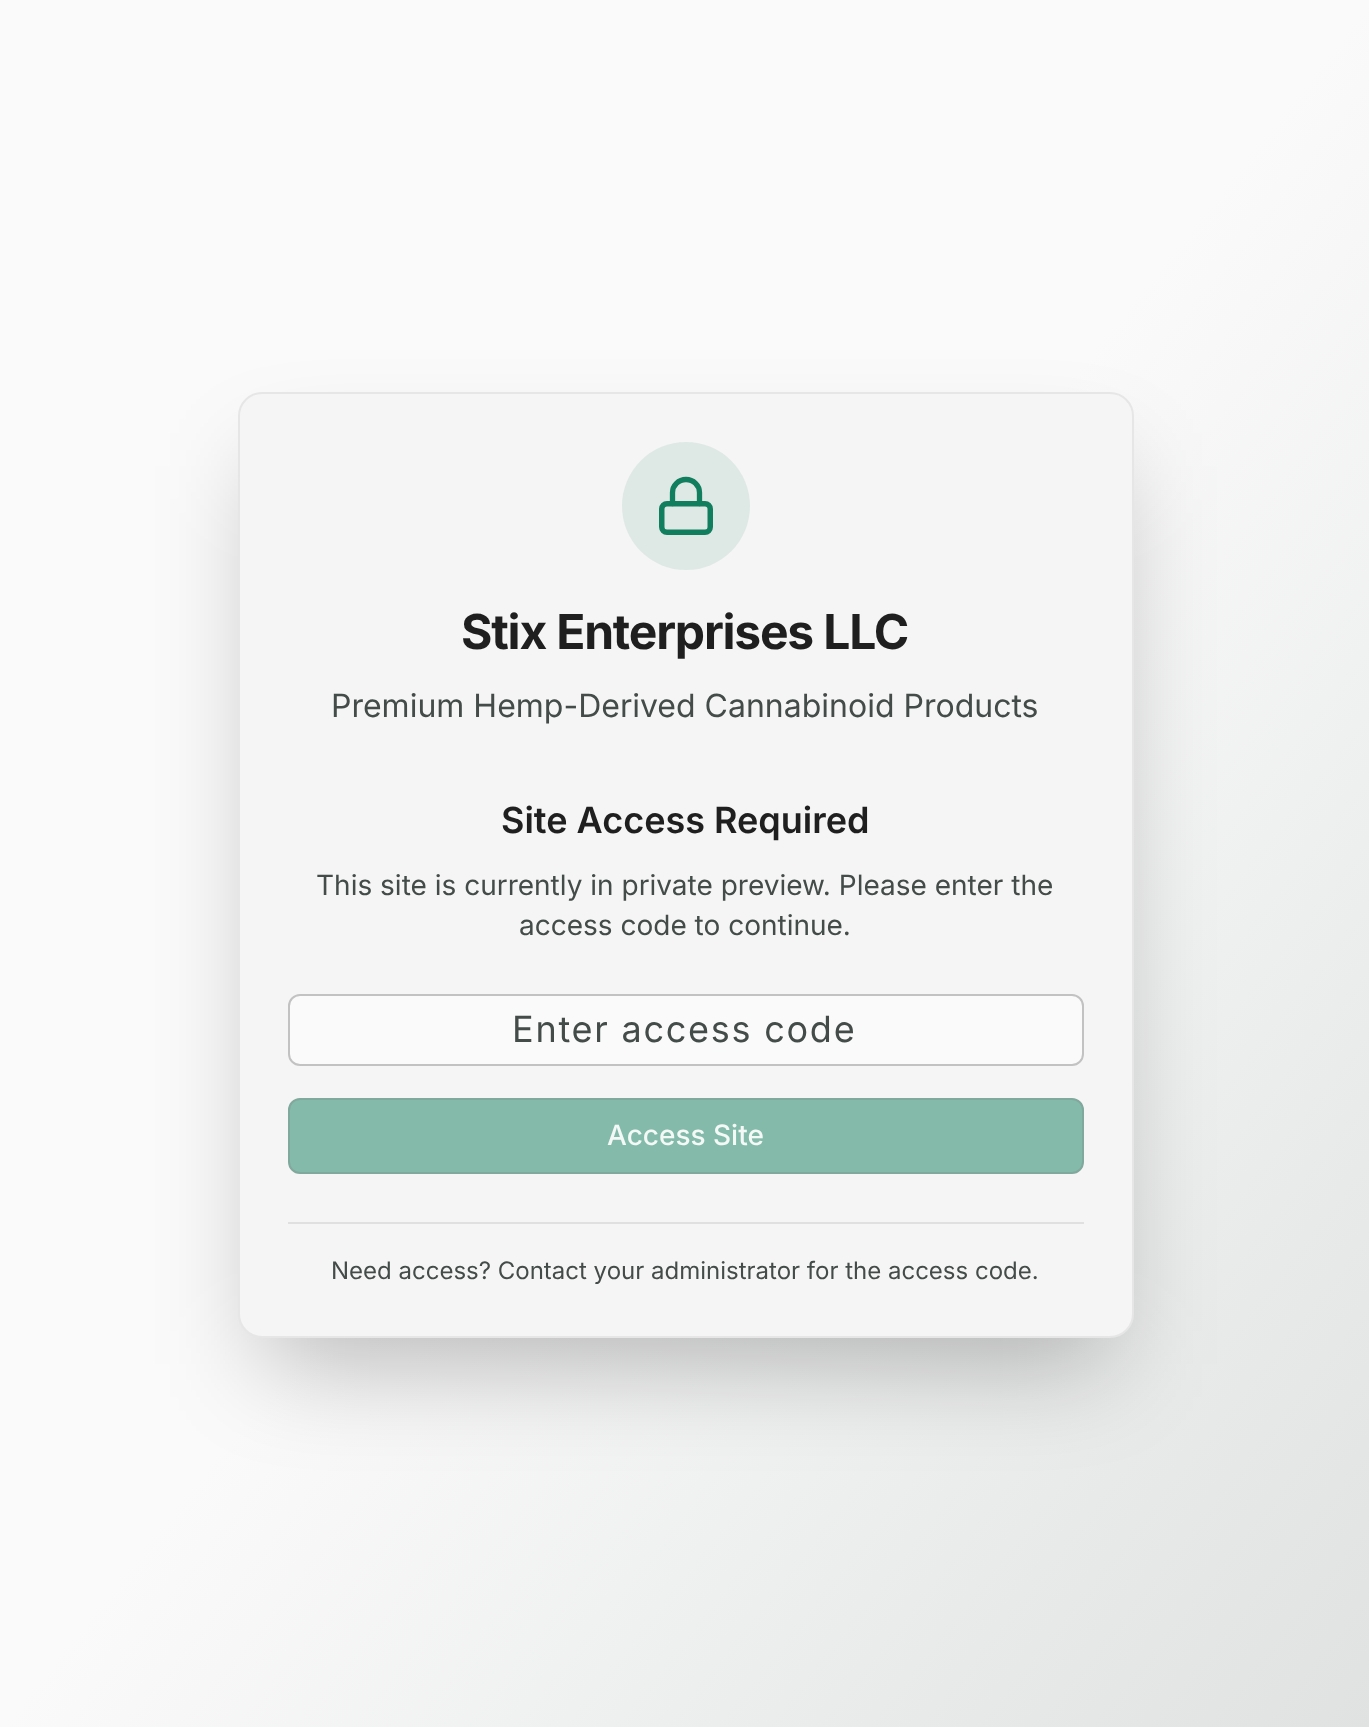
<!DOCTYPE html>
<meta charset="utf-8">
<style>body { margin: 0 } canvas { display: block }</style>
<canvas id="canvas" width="1369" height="1727"></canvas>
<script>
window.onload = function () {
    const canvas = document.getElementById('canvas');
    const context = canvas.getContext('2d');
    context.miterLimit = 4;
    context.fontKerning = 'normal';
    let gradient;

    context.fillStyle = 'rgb(255, 255, 255)';
    context.fillRect(0, 0, 1369, 1727);
    gradient = context.createLinearGradient(-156, 197, 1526, 1531);
    gradient.addColorStop(0, 'rgb(250, 250, 250)');
    gradient.addColorStop(0.5, 'rgb(250, 250, 250)');
    gradient.addColorStop(1, 'rgb(223, 226, 225)');
    context.fillStyle = gradient;
    context.fillRect(0, 0, 1369, 1727);
    context.fillStyle = 'rgba(0, 0, 0, 0.25)';
    context.filter = 'blur(50px)';
    context.beginPath();
    context.rect(262, 466, 848, 898);
    context.fill();
    context.filter = 'none';
    context.fillStyle = 'rgb(245, 245, 245)';
    context.beginPath();
    context.roundRect(239, 393, 894, 944, 23);
    context.fill();
    context.strokeStyle = 'rgb(230, 230, 230)';
    context.lineWidth = 2;
    context.stroke();
    context.fillStyle = 'rgb(222, 233, 230)';
    context.beginPath();
    context.arc(686, 506, 64, 0, 2 * Math.PI);
    context.fill();
    context.beginPath();
    context.roundRect(661.75, 503.75, 48.5, 28.5, 5.25);
    context.strokeStyle = 'rgb(17, 126, 93)';
    context.lineWidth = 5.5;
    context.stroke();
    context.beginPath();
    context.moveTo(672.5, 503.5);
    context.lineTo(672.5, 492.5);
    context.bezierCurveTo(672.5, 485.5, 678.5, 479.5, 686, 479.5);
    context.bezierCurveTo(693.5, 479.5, 699.5, 485.5, 699.5, 492.5);
    context.lineTo(699.5, 503.5);
    context.lineWidth = 5.3;
    context.lineCap = 'round';
    context.lineJoin = 'round';
    context.stroke();
    context.fillStyle = 'rgb(250, 250, 250)';
    context.beginPath();
    context.roundRect(289, 995, 794, 70, 11);
    context.fill();
    context.strokeStyle = 'rgb(194, 194, 194)';
    context.lineWidth = 2;
    context.lineJoin = 'miter';
    context.stroke();
    context.fillStyle = 'rgb(131, 186, 169)';
    context.beginPath();
    context.roundRect(289, 1099, 794, 74, 11);
    context.fill();
    context.strokeStyle = 'rgb(129, 168, 156)';
    context.stroke();
    context.fillStyle = 'rgb(224, 224, 224)';
    context.fillRect(288, 1222, 796, 2);
    context.letterSpacing = '-1.2px';
    context.font = 'bold 48px Inter';
    context.fillStyle = 'rgb(31, 31, 31)';
    context.fillText('Stix Enterprises LLC', 461, 649);
    context.letterSpacing = '0px';
    context.font = '32px Inter';
    context.fillStyle = 'rgb(67, 76, 73)';
    context.fillText('Premium Hemp-Derived Cannabinoid Products', 331, 717);
    context.font = '600 36px Inter';
    context.fillStyle = 'rgb(31, 31, 31)';
    context.fillText('Site Access Required', 501, 833);
    context.font = '28px Inter';
    context.fillStyle = 'rgb(67, 76, 73)';
    context.fillText('This site is currently in private preview. Please enter the', 316, 895);
    context.fillText('access code to continue.', 519, 935);
    context.letterSpacing = '1.75px';
    context.font = '36px Inter';
    context.fillText('Enter access code', 512, 1042);
    context.letterSpacing = '0px';
    context.font = '500 28px Inter';
    context.fillStyle = 'rgb(244, 249, 248)';
    context.fillText('Access Site', 607, 1145);
    context.font = '24px Inter';
    context.fillStyle = 'rgb(67, 76, 73)';
    context.fillText('Need access? Contact your administrator for the access code.', 331, 1279);
};
</script>
